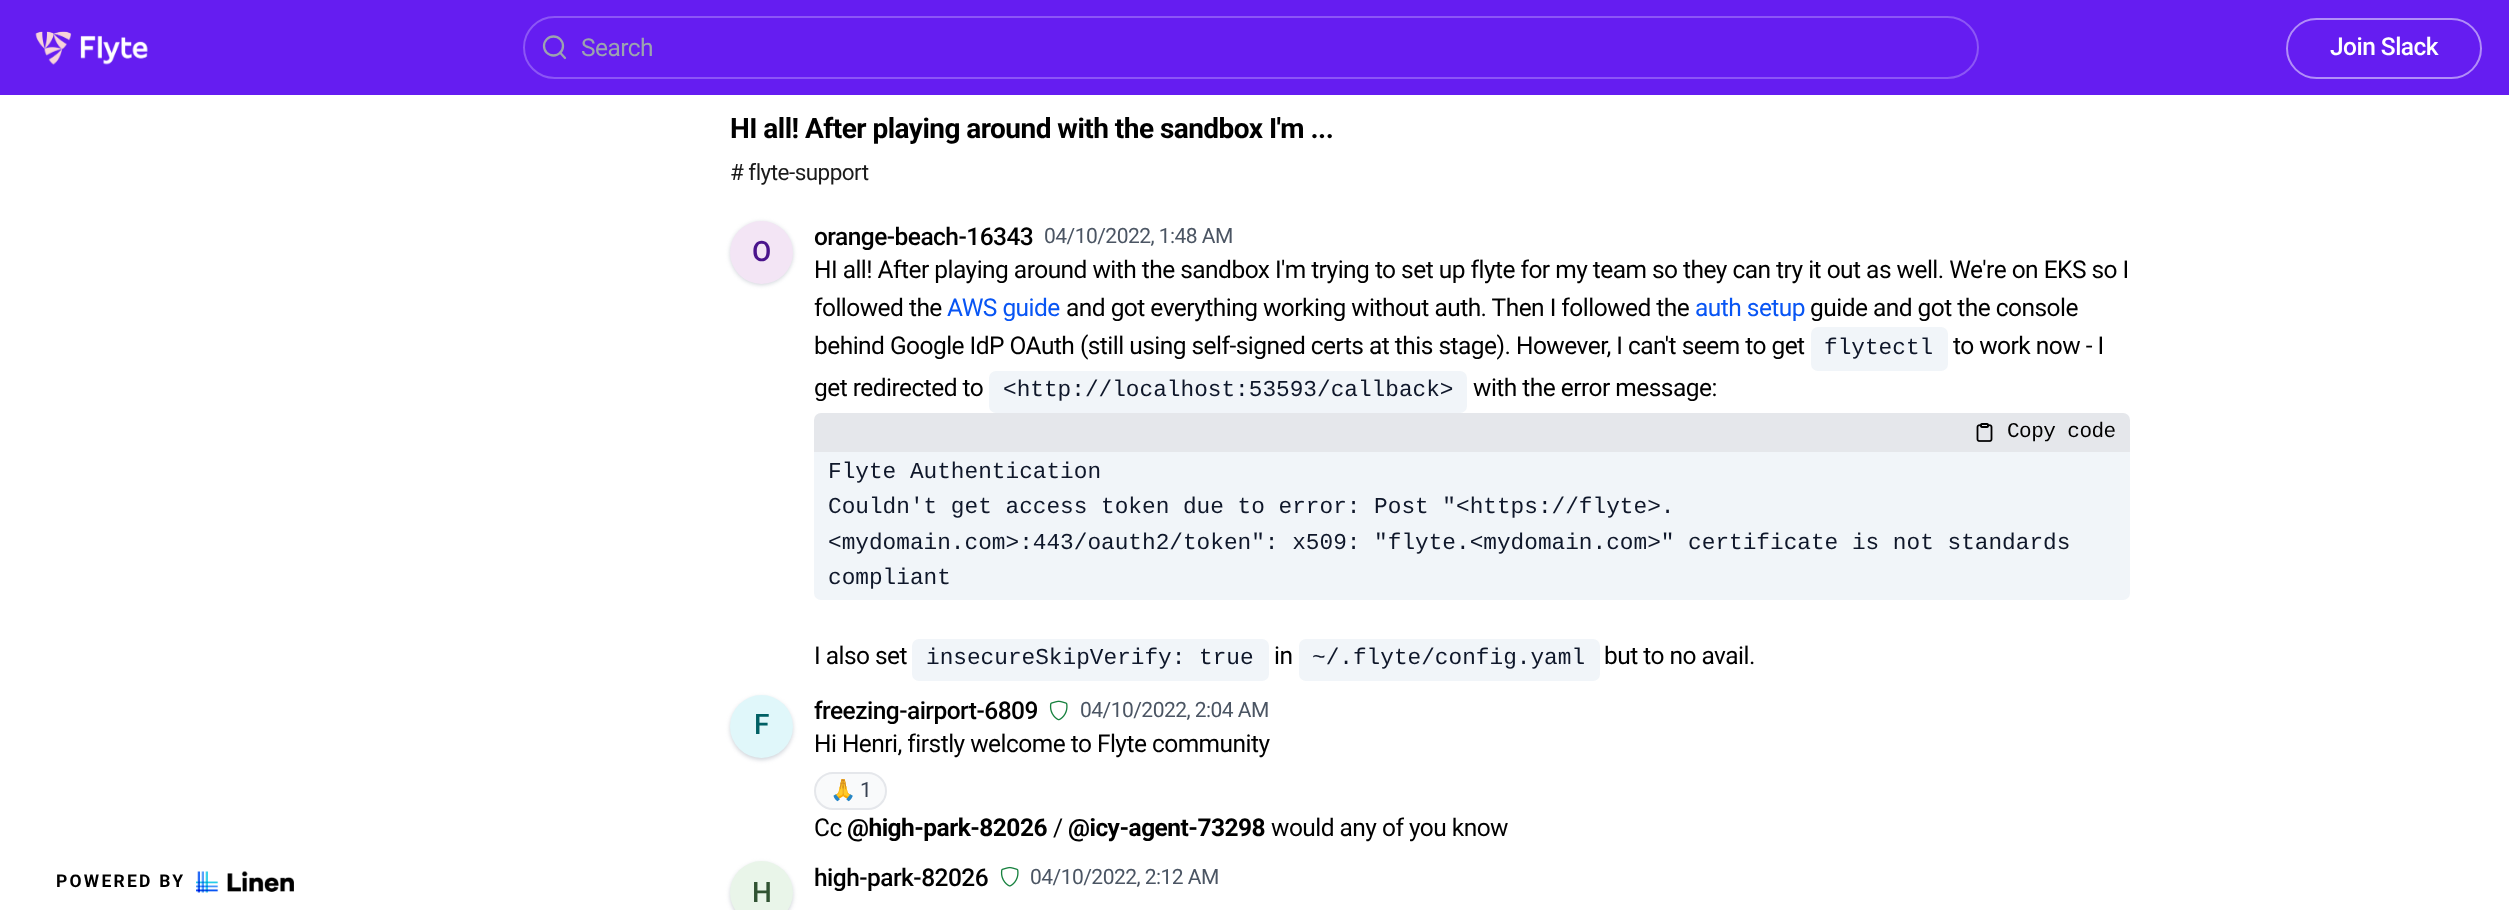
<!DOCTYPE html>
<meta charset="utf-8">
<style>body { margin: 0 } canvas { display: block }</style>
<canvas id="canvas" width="2509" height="910"></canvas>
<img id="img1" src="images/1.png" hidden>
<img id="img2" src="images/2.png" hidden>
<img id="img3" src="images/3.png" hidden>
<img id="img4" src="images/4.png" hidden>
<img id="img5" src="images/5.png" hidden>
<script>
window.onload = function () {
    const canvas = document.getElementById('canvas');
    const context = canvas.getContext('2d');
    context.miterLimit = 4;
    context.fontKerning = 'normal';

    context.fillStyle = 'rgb(255, 255, 255)';
    context.fillRect(0, 0, 2509, 910);
    context.fillStyle = 'rgb(101, 29, 241)';
    context.fillRect(0, 0, 2509, 95);
    context.drawImage(document.getElementById('img1'), 35, 31, 113, 34);
    context.beginPath();
    context.roundRect(524, 17, 1454, 61, 30.5);
    context.strokeStyle = 'rgb(140, 86, 245)';
    context.lineWidth = 2;
    context.stroke();
    context.beginPath();
    context.arc(553.5, 46, 9.5, 0, 2 * Math.PI);
    context.strokeStyle = 'rgb(156, 163, 175)';
    context.lineWidth = 2.3;
    context.stroke();
    context.beginPath();
    context.moveTo(565, 58);
    context.lineTo(560, 52.5);
    context.lineCap = 'round';
    context.lineJoin = 'round';
    context.stroke();
    context.beginPath();
    context.roundRect(2287, 19, 194, 59, 29.5);
    context.strokeStyle = 'rgb(178, 142, 248)';
    context.lineWidth = 2;
    context.lineJoin = 'miter';
    context.stroke();
    context.drawImage(document.getElementById('img2'), 196, 871, 98, 22);
    context.fillStyle = 'rgb(209, 213, 219)';
    context.filter = 'blur(2px)';
    context.beginPath();
    context.roundRect(730, 222, 63, 63, 31.5);
    context.fill();
    context.filter = 'none';
    context.fillStyle = 'rgb(243, 229, 245)';
    context.beginPath();
    context.arc(761.5, 252.5, 31.5, 0, 2 * Math.PI);
    context.fill();
    context.fillStyle = 'rgb(241, 245, 249)';
    context.beginPath();
    context.roundRect(1811, 327, 137, 44, 7);
    context.fill();
    context.beginPath();
    context.roundRect(989, 371, 478, 42, 7);
    context.fill();
    context.fillStyle = 'rgb(229, 231, 235)';
    context.beginPath();
    context.roundRect(814, 413, 1316, 39, [7, 7, 0, 0]);
    context.fill();
    context.drawImage(document.getElementById('img3'), 1976, 423, 17, 19);
    context.fillStyle = 'rgb(241, 245, 249)';
    context.beginPath();
    context.roundRect(814, 452, 1316, 148, [0, 0, 7, 7]);
    context.fill();
    context.beginPath();
    context.roundRect(912, 639, 357, 42, 7);
    context.fill();
    context.beginPath();
    context.roundRect(1299, 639, 301, 42, 7);
    context.fill();
    context.fillStyle = 'rgb(209, 213, 219)';
    context.filter = 'blur(2px)';
    context.beginPath();
    context.roundRect(730, 697, 63, 63, 31.5);
    context.fill();
    context.filter = 'none';
    context.fillStyle = 'rgb(224, 247, 250)';
    context.beginPath();
    context.arc(761.5, 726.5, 31.5, 0, 2 * Math.PI);
    context.fill();
    context.drawImage(document.getElementById('img4'), 1049, 700, 19, 21);
    context.fillStyle = 'rgb(249, 250, 251)';
    context.beginPath();
    context.roundRect(815, 773, 71, 36, 18);
    context.fill();
    context.strokeStyle = 'rgb(229, 231, 235)';
    context.stroke();
    context.fillStyle = 'rgb(209, 213, 219)';
    context.filter = 'blur(2px)';
    context.beginPath();
    context.roundRect(730, 863, 63, 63, 31.5);
    context.fill();
    context.filter = 'none';
    context.fillStyle = 'rgb(233, 245, 233)';
    context.beginPath();
    context.arc(761.5, 892.5, 31.5, 0, 2 * Math.PI);
    context.fill();
    context.drawImage(document.getElementById('img5'), 1000, 866, 19, 21);
    context.letterSpacing = '-0.53px';
    context.font = '24.5px Roboto';
    context.fillStyle = 'rgb(156, 163, 175)';
    context.fillText('Search', 581, 56);
    context.font = '500 24.5px Roboto';
    context.fillStyle = 'rgb(255, 255, 255)';
    context.fillText('Join Slack', 2330, 55);
    context.letterSpacing = '2.25px';
    context.font = 'bold 17.5px Roboto';
    context.fillStyle = 'rgb(0, 0, 0)';
    context.fillText('POWERED BY', 56, 887);
    context.letterSpacing = '-0.53px';
    context.font = 'bold 28px Roboto';
    context.fillText('HI all! After playing around with the sandbox I\'m ...', 730, 138);
    context.font = '22.5px Roboto';
    context.fillStyle = 'rgb(26, 26, 26)';
    context.fillText('# flyte-support', 730, 180);
    context.font = '500 28px Roboto';
    context.fillStyle = 'rgb(74, 20, 140)';
    context.fillText('O', 752, 261);
    context.font = '500 24.5px Roboto';
    context.fillStyle = 'rgb(0, 0, 0)';
    context.fillText('orange-beach-16343', 814, 245);
    context.font = '21px Roboto';
    context.fillStyle = 'rgb(75, 85, 99)';
    context.fillText('04/10/2022, 1:48 AM', 1044, 243);
    context.font = '24.5px Roboto';
    context.fillStyle = 'rgb(0, 0, 0)';
    context.fillText('HI all! After playing around with the sandbox I\'m trying to set up flyte for my team so they can try it out as well. We\'re on EKS so I', 814, 278);
    context.fillText('followed the', 814, 316);
    context.fillStyle = 'rgb(8, 85, 244)';
    context.fillText('AWS guide', 947, 316);
    context.fillStyle = 'rgb(0, 0, 0)';
    context.fillText('and got everything working without auth. Then I followed the', 1066, 316);
    context.fillStyle = 'rgb(8, 85, 244)';
    context.fillText('auth setup', 1695, 316);
    context.fillStyle = 'rgb(0, 0, 0)';
    context.fillText('guide and got the console', 1810, 316);
    context.fillText('behind Google IdP OAuth (still using self-signed certs at this stage). However, I can\'t seem to get', 814, 354);
    context.letterSpacing = '0px';
    context.font = '22.75px Liberation Mono';
    context.fillStyle = 'rgb(15, 23, 42)';
    context.fillText('flytectl', 1824, 354);
    context.letterSpacing = '-0.53px';
    context.font = '24.5px Roboto';
    context.fillStyle = 'rgb(0, 0, 0)';
    context.fillText('to work now - I', 1953, 354);
    context.fillText('get redirected to', 814, 396);
    context.letterSpacing = '0px';
    context.font = '22.75px Liberation Mono';
    context.fillStyle = 'rgb(15, 23, 42)';
    context.fillText('<http://localhost:53593/callback>', 1003, 396);
    context.letterSpacing = '-0.53px';
    context.font = '24.5px Roboto';
    context.fillStyle = 'rgb(0, 0, 0)';
    context.fillText('with the error message:', 1473, 396);
    context.font = '21px Liberation Mono';
    context.fillText('Copy code', 2007, 437);
    context.letterSpacing = '0px';
    context.font = '22.75px Liberation Mono';
    context.fillStyle = 'rgb(15, 23, 42)';
    context.fillText('Flyte Authentication', 828, 478);
    context.fillText('Couldn\'t get access token due to error: Post "<https://flyte>.', 828, 513);
    context.fillText('<mydomain.com>:443/oauth2/token": x509: "flyte.<mydomain.com>" certificate is not standards', 828, 549);
    context.fillText('compliant', 828, 584);
    context.letterSpacing = '-0.53px';
    context.font = '24.5px Roboto';
    context.fillStyle = 'rgb(0, 0, 0)';
    context.fillText('I also set', 814, 664);
    context.letterSpacing = '0px';
    context.font = '22.75px Liberation Mono';
    context.fillStyle = 'rgb(15, 23, 42)';
    context.fillText('insecureSkipVerify: true', 926, 664);
    context.letterSpacing = '-0.53px';
    context.font = '24.5px Roboto';
    context.fillStyle = 'rgb(0, 0, 0)';
    context.fillText('in', 1274, 664);
    context.letterSpacing = '0px';
    context.font = '22.75px Liberation Mono';
    context.fillStyle = 'rgb(15, 23, 42)';
    context.fillText('~/.flyte/config.yaml', 1312, 664);
    context.letterSpacing = '-0.53px';
    context.font = '24.5px Roboto';
    context.fillStyle = 'rgb(0, 0, 0)';
    context.fillText('but to no avail.', 1604, 664);
    context.font = '500 28px Roboto';
    context.fillStyle = 'rgb(0, 96, 100)';
    context.fillText('F', 754, 734);
    context.font = '500 24.5px Roboto';
    context.fillStyle = 'rgb(0, 0, 0)';
    context.fillText('freezing-airport-6809', 814, 719);
    context.font = '21px Roboto';
    context.fillStyle = 'rgb(75, 85, 99)';
    context.fillText('04/10/2022, 2:04 AM', 1080, 717);
    context.font = '24.5px Roboto';
    context.fillStyle = 'rgb(0, 0, 0)';
    context.fillText('Hi Henri, firstly welcome to Flyte community', 814, 752);
    context.font = '21px Noto Color Emoji';
    context.fillStyle = 'rgb(55, 65, 81)';
    context.fillText('🙏', 830, 797);
    context.font = '21px Roboto';
    context.fillText('1', 860, 797);
    context.font = '24.5px Roboto';
    context.fillStyle = 'rgb(0, 0, 0)';
    context.fillText('Cc', 814, 836);
    context.font = 'bold 24.5px Roboto';
    context.fillText('@high-park-82026', 847, 836);
    context.font = '24.5px Roboto';
    context.fillText('/', 1053, 836);
    context.font = 'bold 24.5px Roboto';
    context.fillText('@icy-agent-73298', 1068, 836);
    context.font = '24.5px Roboto';
    context.fillText('would any of you know', 1271, 836);
    context.font = '500 28px Roboto';
    context.fillStyle = 'rgb(48, 83, 50)';
    context.fillText('H', 752, 902);
    context.font = '500 24.5px Roboto';
    context.fillStyle = 'rgb(0, 0, 0)';
    context.fillText('high-park-82026', 814, 886);
    context.font = '21px Roboto';
    context.fillStyle = 'rgb(75, 85, 99)';
    context.fillText('04/10/2022, 2:12 AM', 1030, 884);
};
</script>
